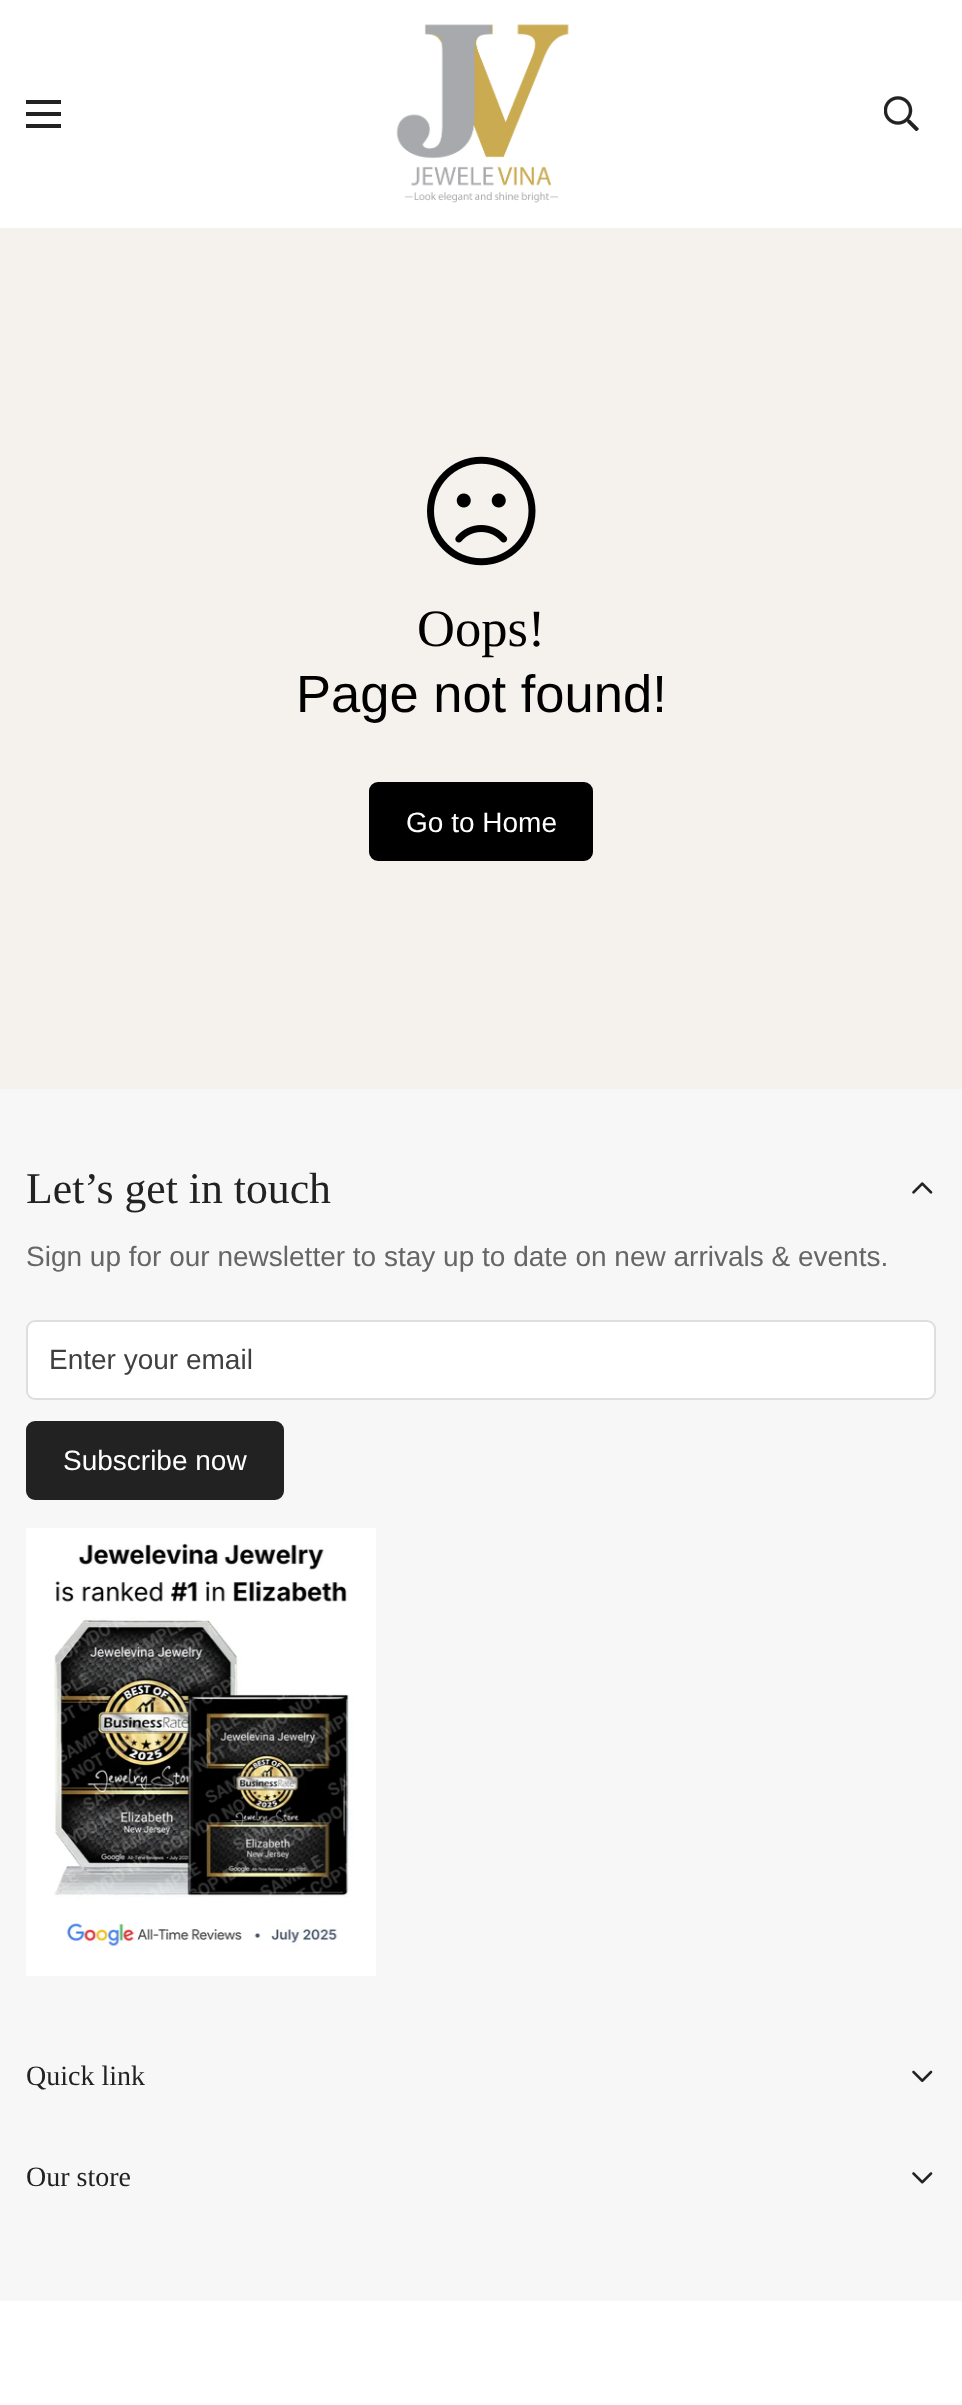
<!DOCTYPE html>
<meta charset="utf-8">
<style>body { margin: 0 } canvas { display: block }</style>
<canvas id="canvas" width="962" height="2405"></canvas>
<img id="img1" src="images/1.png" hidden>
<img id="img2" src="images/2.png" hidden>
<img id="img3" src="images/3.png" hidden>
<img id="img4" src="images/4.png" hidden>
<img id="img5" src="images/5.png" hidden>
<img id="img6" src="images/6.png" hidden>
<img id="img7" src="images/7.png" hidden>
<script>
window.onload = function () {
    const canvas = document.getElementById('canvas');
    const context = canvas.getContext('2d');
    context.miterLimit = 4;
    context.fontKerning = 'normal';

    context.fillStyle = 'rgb(255, 255, 255)';
    context.fillRect(0, 0, 962, 2405);
    context.fillStyle = 'rgb(34, 34, 34)';
    context.fillRect(26, 112, 35, 4);
    context.fillRect(26, 100, 35, 4);
    context.fillRect(26, 124, 35, 4);
    context.drawImage(document.getElementById('img1'), 396, 24, 173, 179);
    context.drawImage(document.getElementById('img2'), 884, 96, 35, 35);
    context.fillStyle = 'rgb(245, 241, 237)';
    context.fillRect(0, 228, 962, 861);
    context.drawImage(document.getElementById('img3'), 427, 456, 109, 110);
    context.fillStyle = 'rgb(0, 0, 0)';
    context.beginPath();
    context.roundRect(370, 783, 222, 77, 8);
    context.fill();
    context.strokeStyle = 'rgb(0, 0, 0)';
    context.lineWidth = 2;
    context.stroke();
    context.fillStyle = 'rgb(247, 247, 247)';
    context.fillRect(0, 1089, 962, 1212);
    context.drawImage(document.getElementById('img4'), 912, 1182, 21, 12);
    context.fillStyle = 'rgb(255, 255, 255)';
    context.beginPath();
    context.roundRect(27, 1321, 908, 78, 8);
    context.fill();
    context.strokeStyle = 'rgb(222, 222, 222)';
    context.stroke();
    context.fillStyle = 'rgb(34, 34, 34)';
    context.beginPath();
    context.roundRect(27, 1422, 256, 77, 8);
    context.fill();
    context.strokeStyle = 'rgb(34, 34, 34)';
    context.stroke();
    context.drawImage(document.getElementById('img5'), 26, 1528, 350, 448);
    context.drawImage(document.getElementById('img6'), 912, 2070, 21, 13);
    context.drawImage(document.getElementById('img7'), 912, 2172, 21, 12);
    context.font = '52.5px Liberation Serif';
    context.fillStyle = 'rgb(0, 0, 0)';
    context.fillText('Oops!', 417, 646);
    context.font = '52.5px Liberation Sans';
    context.fillText('Page not found!', 296, 712);
    context.font = '28px Liberation Sans';
    context.fillStyle = 'rgb(255, 255, 255)';
    context.fillText('Go to Home', 406, 832);
    context.font = '43.75px Liberation Serif';
    context.fillStyle = 'rgb(34, 34, 34)';
    context.fillText('Let’s get in touch', 26, 1203);
    context.font = '28px Liberation Sans';
    context.fillStyle = 'rgb(102, 102, 102)';
    context.fillText('Sign up for our newsletter to stay up to date on new arrivals & events.', 26, 1266);
    context.fillStyle = 'rgb(64, 64, 64)';
    context.fillText('Enter your email', 49, 1369);
    context.fillStyle = 'rgb(255, 255, 255)';
    context.fillText('Subscribe now', 63, 1470);
    context.font = '28px Liberation Serif';
    context.fillStyle = 'rgb(34, 34, 34)';
    context.fillText('Quick link', 26, 2085);
    context.fillText('Our store', 26, 2186);
};
</script>
